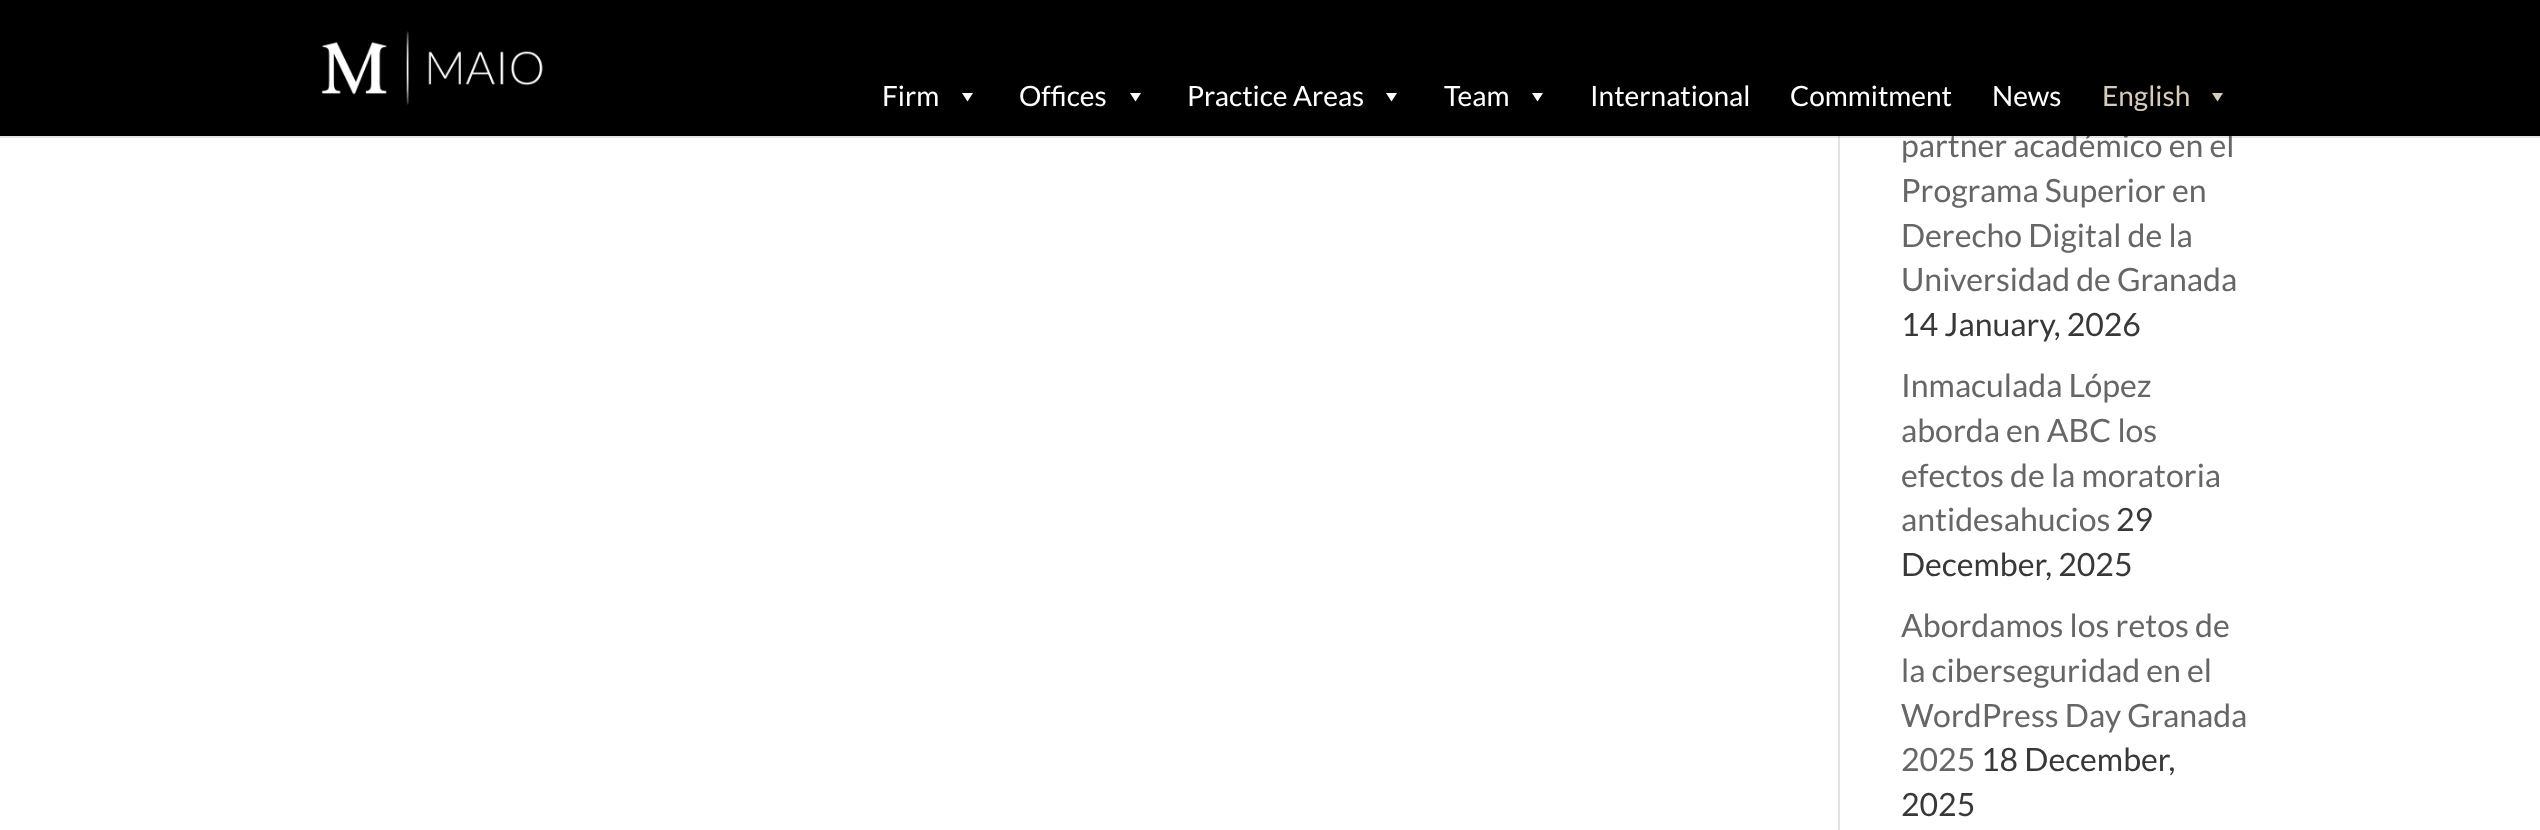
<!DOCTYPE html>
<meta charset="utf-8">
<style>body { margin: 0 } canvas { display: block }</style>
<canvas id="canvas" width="2540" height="830"></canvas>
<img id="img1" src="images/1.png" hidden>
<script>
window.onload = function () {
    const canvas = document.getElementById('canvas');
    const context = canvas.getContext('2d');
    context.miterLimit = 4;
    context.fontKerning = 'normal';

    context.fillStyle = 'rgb(255, 255, 255)';
    context.fillRect(0, 0, 2540, 830);
    context.fillStyle = 'rgb(226, 226, 226)';
    context.fillRect(1838, 136, 2, 694);
    context.fillStyle = 'rgba(0, 0, 0, 0.1)';
    context.fillRect(0, 136, 2540, 2);
    context.font = '32px Lato';
    context.fillStyle = 'rgb(102, 102, 102)';
    context.fillText('partner académico en el', 1901, 157);
    context.fillStyle = 'rgb(0, 0, 0)';
    context.fillRect(0, 0, 2540, 136);
    context.fillStyle = 'rgb(215, 203, 187)';
    context.beginPath();
    context.moveTo(2223, 93);
    context.lineTo(2217.5, 101.5);
    context.lineTo(2212, 93);
    context.closePath();
    context.fill();
    context.font = '28px Lato';
    context.fillText('English', 2102, 106);
    context.fillStyle = 'rgb(255, 255, 255)';
    context.fillText('News', 1992, 106);
    context.fillText('Commitment', 1790, 106);
    context.fillText('International', 1590, 106);
    context.beginPath();
    context.moveTo(1543, 93);
    context.lineTo(1537.5, 101.5);
    context.lineTo(1532, 93);
    context.closePath();
    context.fill();
    context.fillText('Team', 1444, 106);
    context.beginPath();
    context.moveTo(1397, 93);
    context.lineTo(1391.5, 101.5);
    context.lineTo(1386, 93);
    context.closePath();
    context.fill();
    context.fillText('Practice Areas', 1187, 106);
    context.beginPath();
    context.moveTo(1141, 93);
    context.lineTo(1135.5, 101.5);
    context.lineTo(1130, 93);
    context.closePath();
    context.fill();
    context.fillText('Offices', 1019, 106);
    context.beginPath();
    context.moveTo(973, 93);
    context.lineTo(967.5, 101.5);
    context.lineTo(962, 93);
    context.closePath();
    context.fill();
    context.fillText('Firm', 882, 106);
    context.drawImage(document.getElementById('img1'), 321, 31, 222, 74);
    context.font = '32px Lato';
    context.fillStyle = 'rgb(102, 102, 102)';
    context.fillText('Programa Superior en', 1901, 202);
    context.fillText('Derecho Digital de la', 1901, 247);
    context.fillText('Universidad de Granada', 1901, 291);
    context.fillStyle = 'rgb(56, 56, 56)';
    context.fillText('14 January, 2026', 1901, 336);
    context.fillStyle = 'rgb(102, 102, 102)';
    context.fillText('Inmaculada López', 1901, 397);
    context.fillText('aborda en ABC los', 1901, 442);
    context.fillText('efectos de la moratoria', 1901, 487);
    context.fillText('antidesahucios', 1901, 531);
    context.fillStyle = 'rgb(56, 56, 56)';
    context.fillText('29', 2116, 531);
    context.fillText('December, 2025', 1901, 576);
    context.fillStyle = 'rgb(102, 102, 102)';
    context.fillText('Abordamos los retos de', 1901, 637);
    context.fillText('la ciberseguridad en el', 1901, 682);
    context.fillText('WordPress Day Granada', 1901, 727);
    context.fillText('2025', 1901, 771);
    context.fillStyle = 'rgb(56, 56, 56)';
    context.fillText('18 December,', 1981, 771);
    context.fillText('2025', 1901, 816);
};
</script>
